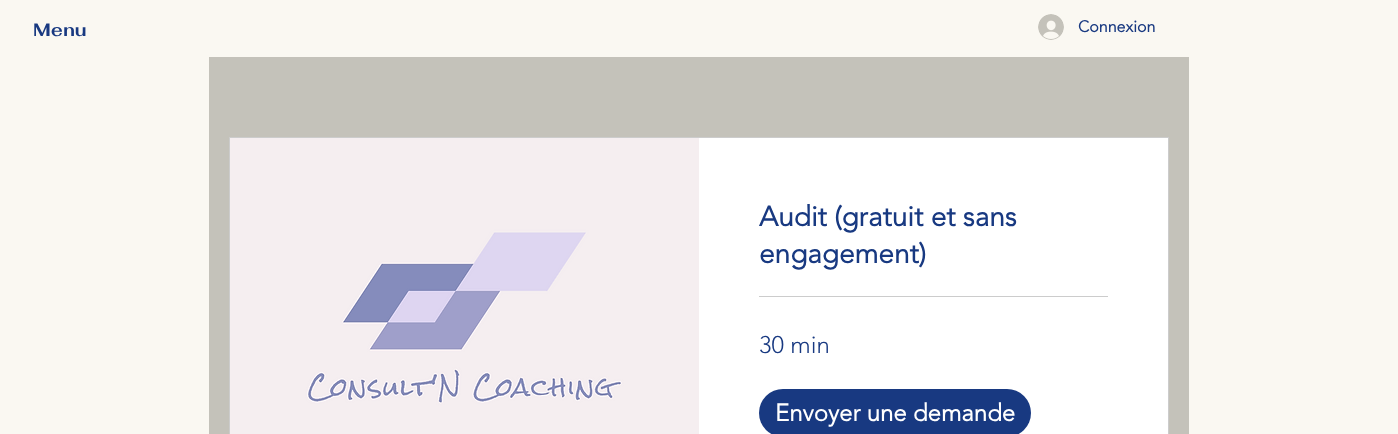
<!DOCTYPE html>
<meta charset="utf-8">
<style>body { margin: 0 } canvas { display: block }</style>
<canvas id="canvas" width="1398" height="434"></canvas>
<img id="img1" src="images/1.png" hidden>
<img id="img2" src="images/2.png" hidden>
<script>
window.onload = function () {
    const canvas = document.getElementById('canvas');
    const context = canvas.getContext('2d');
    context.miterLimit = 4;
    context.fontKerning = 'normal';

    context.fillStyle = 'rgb(250, 248, 242)';
    context.fillRect(0, 0, 1398, 434);
    context.drawImage(document.getElementById('img1'), 1038, 14, 26, 26);
    context.fillStyle = 'rgb(196, 194, 186)';
    context.fillRect(209, 57, 980, 377);
    context.fillStyle = 'rgb(255, 255, 255)';
    context.fillRect(699, 138, 469, 296);
    context.strokeStyle = 'rgb(204, 204, 204)';
    context.strokeRect(229.5, 137.5, 939, 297);
    context.drawImage(document.getElementById('img2'), 230, 138, 469, 296);
    context.fillStyle = 'rgb(204, 204, 204)';
    context.fillRect(759, 296, 349, 1);
    context.fillStyle = 'rgb(24, 57, 129)';
    context.beginPath();
    context.roundRect(759, 389, 272, 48, 24);
    context.fill();
    context.font = 'bold 18px Fahkwang';
    context.fillText('Menu', 33, 36);
    context.font = 'bold 16px "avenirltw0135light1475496"';
    context.fillText('Connexion', 1078, 32);
    context.font = 'bold 28px "avenirltw0135light1475496"';
    context.fillText('Audit (gratuit et sans', 759, 226);
    context.fillText('engagement)', 759, 263);
    context.font = '300 24px "avenirltw0135light1475496"';
    context.fillText('30 min', 759, 353);
    context.font = 'bold 24px "avenirltw0135light1475496"';
    context.fillStyle = 'rgb(255, 255, 255)';
    context.fillText('Envoyer une demande', 775, 421);
};
</script>
